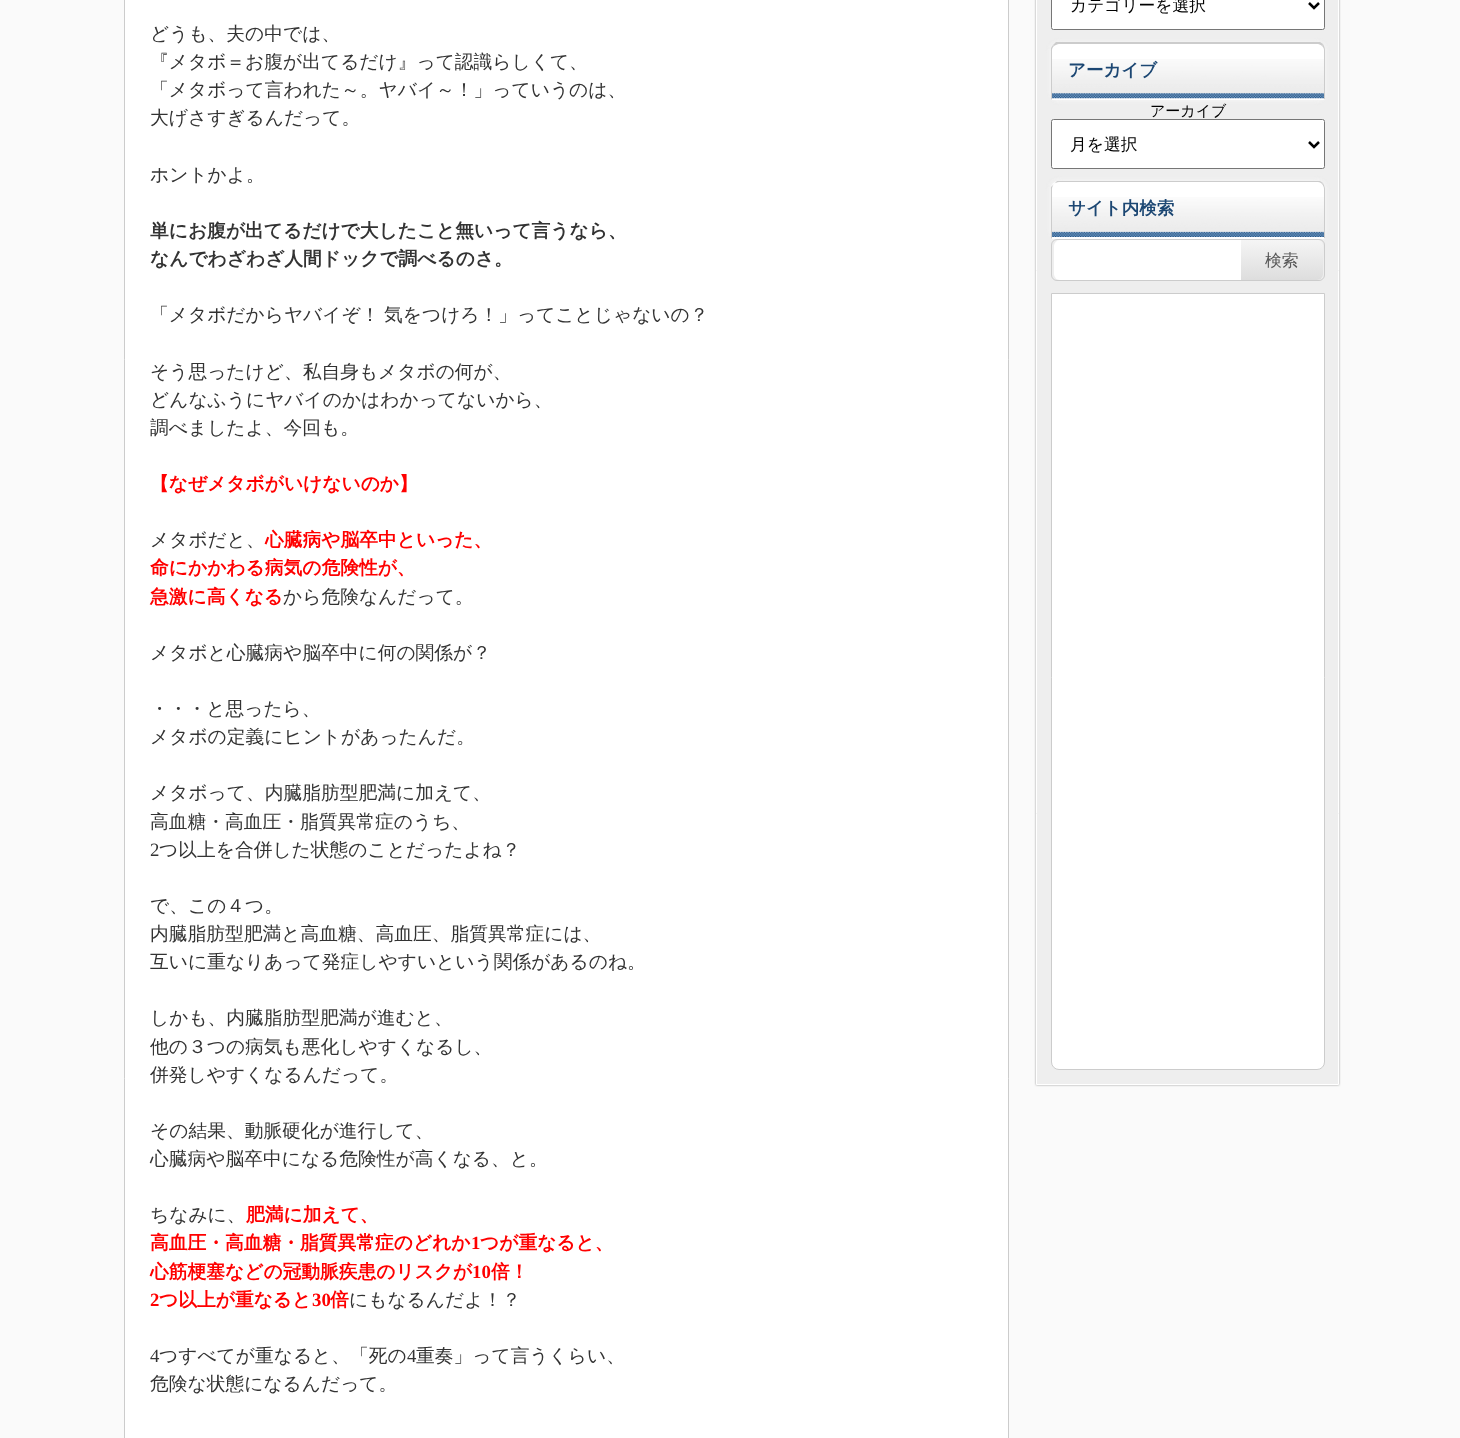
<!DOCTYPE html>
<meta charset="utf-8">
<style>body { margin: 0 } canvas { display: block }</style>
<canvas id="canvas" width="1460" height="1438"></canvas>
<img id="img1" src="images/1.png" hidden>
<img id="img2" src="images/2.png" hidden>
<script>
window.onload = function () {
    const canvas = document.getElementById('canvas');
    const context = canvas.getContext('2d');
    context.miterLimit = 4;
    context.fontKerning = 'normal';
    let gradient;

    context.fillStyle = 'rgb(250, 250, 250)';
    context.fillRect(0, 0, 1460, 1438);
    context.fillStyle = 'rgb(255, 255, 255)';
    context.beginPath();
    context.rect(124.5, -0.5, 884, 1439);
    context.fill();
    context.strokeStyle = 'rgb(204, 204, 204)';
    context.stroke();
    context.fillStyle = 'rgb(153, 153, 153)';
    context.filter = 'blur(1px)';
    context.beginPath();
    context.rect(1036, -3, 303, 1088);
    context.fill();
    context.filter = 'none';
    context.fillStyle = 'rgb(238, 238, 238)';
    context.beginPath();
    context.rect(1036.5, -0.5, 302, 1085);
    context.fill();
    context.strokeStyle = 'rgb(255, 255, 255)';
    context.stroke();
    context.fillStyle = 'rgb(255, 255, 255)';
    context.beginPath();
    context.roundRect(1051.5, -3.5, 273, 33, 2);
    context.fill();
    context.strokeStyle = 'rgb(118, 118, 118)';
    context.stroke();
    context.beginPath();
    context.moveTo(1309, 3);
    context.lineTo(1314, 8);
    context.lineTo(1319, 3);
    context.strokeStyle = 'rgb(0, 0, 0)';
    context.lineWidth = 2.5;
    context.stroke();
    context.filter = 'blur(2.5px)';
    context.beginPath();
    context.roundRect(1051, 43, 274, 57, 8);
    context.fill();
    context.filter = 'none';
    context.fillStyle = 'rgb(238, 238, 238)';
    context.filter = 'blur(2.5px)';
    context.beginPath();
    context.roundRect(1051, 43, 274, 57, 8);
    context.fill();
    context.filter = 'none';
    context.fillStyle = 'rgb(255, 255, 255)';
    context.beginPath();
    context.roundRect(1051, 43, 274, 57, [8, 8, 0, 0]);
    context.fill();
    context.drawImage(document.getElementById('img1'), 1052, 59, 272, 40);
    context.fillStyle = 'rgb(204, 204, 204)';
    context.beginPath();
    context.moveTo(1059, 44);
    context.bezierCurveTo(1057, 44, 1056, 45, 1054, 46);
    context.lineTo(1053, 45);
    context.lineTo(1056, 42);
    context.lineTo(1320, 42);
    context.lineTo(1323, 44);
    context.lineTo(1322, 46);
    context.bezierCurveTo(1321, 45, 1319, 44, 1318, 44);
    context.closePath();
    context.fill();
    context.beginPath();
    context.moveTo(1325, 100);
    context.lineTo(1325, 50);
    context.bezierCurveTo(1325, 48, 1324, 46, 1323, 44);
    context.lineTo(1322, 46);
    context.bezierCurveTo(1323, 47, 1324, 48, 1324, 50);
    context.lineTo(1324, 99);
    context.closePath();
    context.fill();
    context.fillStyle = 'rgb(255, 255, 255)';
    context.beginPath();
    context.moveTo(1325, 100);
    context.lineTo(1324, 99);
    context.lineTo(1052, 99);
    context.lineTo(1051, 100);
    context.closePath();
    context.fill();
    context.fillStyle = 'rgb(204, 204, 204)';
    context.beginPath();
    context.moveTo(1051, 100);
    context.lineTo(1051, 48);
    context.lineTo(1053, 45);
    context.lineTo(1054, 46);
    context.bezierCurveTo(1053, 47, 1052, 48, 1052, 50);
    context.lineTo(1052, 99);
    context.closePath();
    context.fill();
    context.fillStyle = 'rgb(255, 255, 255)';
    context.beginPath();
    context.roundRect(1051.5, 119.5, 273, 49, 2);
    context.fill();
    context.strokeStyle = 'rgb(118, 118, 118)';
    context.lineWidth = 1;
    context.stroke();
    context.beginPath();
    context.moveTo(1309, 142);
    context.lineTo(1314, 147);
    context.lineTo(1319, 142);
    context.strokeStyle = 'rgb(0, 0, 0)';
    context.lineWidth = 2.5;
    context.stroke();
    context.filter = 'blur(2.5px)';
    context.beginPath();
    context.roundRect(1051, 181, 274, 58, 8);
    context.fill();
    context.filter = 'none';
    context.fillStyle = 'rgb(238, 238, 238)';
    context.filter = 'blur(2.5px)';
    context.beginPath();
    context.roundRect(1051, 181, 274, 58, 8);
    context.fill();
    context.filter = 'none';
    context.fillStyle = 'rgb(255, 255, 255)';
    context.beginPath();
    context.roundRect(1051, 181, 274, 58, [8, 8, 0, 0]);
    context.fill();
    context.drawImage(document.getElementById('img2'), 1052, 197, 272, 40);
    context.fillStyle = 'rgb(204, 204, 204)';
    context.beginPath();
    context.moveTo(1059, 182);
    context.bezierCurveTo(1057, 182, 1055, 183, 1054, 184);
    context.lineTo(1057, 181);
    context.lineTo(1320, 181);
    context.lineTo(1323, 183);
    context.lineTo(1322, 184);
    context.bezierCurveTo(1321, 183, 1320, 182, 1318, 182);
    context.closePath();
    context.fill();
    context.beginPath();
    context.moveTo(1325, 239);
    context.lineTo(1325, 189);
    context.bezierCurveTo(1325, 187, 1324, 185, 1323, 183);
    context.lineTo(1322, 184);
    context.bezierCurveTo(1323, 185, 1324, 187, 1324, 189);
    context.lineTo(1324, 238);
    context.closePath();
    context.fill();
    context.fillStyle = 'rgb(255, 255, 255)';
    context.beginPath();
    context.moveTo(1325, 239);
    context.lineTo(1324, 238);
    context.lineTo(1052, 238);
    context.lineTo(1051, 239);
    context.closePath();
    context.fill();
    context.fillStyle = 'rgb(204, 204, 204)';
    context.beginPath();
    context.moveTo(1051, 239);
    context.lineTo(1051, 187);
    context.lineTo(1054, 184);
    context.bezierCurveTo(1053, 185, 1052, 187, 1052, 189);
    context.lineTo(1052, 238);
    context.closePath();
    context.fill();
    context.beginPath();
    context.roundRect(1051.5, 239.5, 273, 41, 5.5);
    context.strokeStyle = 'rgb(204, 204, 204)';
    context.lineWidth = 1;
    context.stroke();
    context.fillStyle = 'rgb(255, 255, 255)';
    context.beginPath();
    context.roundRect(1054, 240, 190, 40, [6, 0, 0, 6]);
    context.fill();
    gradient = context.createLinearGradient(1282, 240, 1282, 280);
    gradient.addColorStop(0, 'rgb(245, 245, 245)');
    gradient.addColorStop(1, 'rgb(221, 221, 221)');
    context.fillStyle = gradient;
    context.beginPath();
    context.roundRect(1241, 240, 82, 40, [0, 6, 6, 0]);
    context.fill();
    context.fillStyle = 'rgb(255, 255, 255)';
    context.beginPath();
    context.roundRect(1051.5, 293.5, 273, 776, [0, 0, 7.5, 7.5]);
    context.fill();
    context.stroke();
    context.font = '500 18.75px WenQuanYi Zen Hei';
    context.fillStyle = 'rgb(51, 51, 51)';
    context.fillText('どうも、夫の中では、', 150, 40);
    context.fillText('『メタボ＝お腹が出てるだけ』って認識らしくて、', 150, 68);
    context.fillText('「メタボって言われた～。ヤバイ～！」っていうのは、', 150, 96);
    context.fillText('大げさすぎるんだって。', 150, 124);
    context.fillText('ホントかよ。', 150, 181);
    context.font = 'bold 18.75px WenQuanYi Zen Hei';
    context.fillText('単にお腹が出てるだけで大したこと無いって言うなら、', 150, 237);
    context.fillText('なんでわざわざ人間ドックで調べるのさ。', 150, 265);
    context.wordSpacing = '-1px';
    context.font = '500 18.75px WenQuanYi Zen Hei';
    context.fillText('「メタボだからヤバイぞ！ 気をつけろ！」ってことじゃないの？', 150, 321);
    context.wordSpacing = '0px';
    context.fillText('そう思ったけど、私自身もメタボの何が、', 150, 378);
    context.fillText('どんなふうにヤバイのかはわかってないから、', 150, 406);
    context.fillText('調べましたよ、今回も。', 150, 434);
    context.font = 'bold 18.75px WenQuanYi Zen Hei';
    context.fillStyle = 'rgb(255, 0, 0)';
    context.fillText('【なぜメタボがいけないのか】', 150, 490);
    context.font = '500 18.75px WenQuanYi Zen Hei';
    context.fillStyle = 'rgb(51, 51, 51)';
    context.fillText('メタボだと、', 150, 546);
    context.font = 'bold 18.75px WenQuanYi Zen Hei';
    context.fillStyle = 'rgb(255, 0, 0)';
    context.fillText('心臓病や脳卒中といった、', 265, 546);
    context.fillText('命にかかわる病気の危険性が、', 150, 574);
    context.fillText('急激に高くなる', 150, 603);
    context.font = '500 18.75px WenQuanYi Zen Hei';
    context.fillStyle = 'rgb(51, 51, 51)';
    context.fillText('から危険なんだって。', 283, 603);
    context.fillText('メタボと心臓病や脳卒中に何の関係が？', 150, 659);
    context.fillText('・・・と思ったら、', 150, 715);
    context.fillText('メタボの定義にヒントがあったんだ。', 150, 743);
    context.fillText('メタボって、内臓脂肪型肥満に加えて、', 150, 799);
    context.fillText('高血糖・高血圧・脂質異常症のうち、', 150, 828);
    context.font = '18.75px Liberation Serif';
    context.fillText('2', 150, 856);
    context.font = '500 18.75px WenQuanYi Zen Hei';
    context.fillText('つ以上を合併した状態のことだったよね？', 159, 856);
    context.fillText('で、この４つ。', 150, 912);
    context.fillText('内臓脂肪型肥満と高血糖、高血圧、脂質異常症には、', 150, 940);
    context.fillText('互いに重なりあって発症しやすいという関係があるのね。', 150, 968);
    context.fillText('しかも、内臓脂肪型肥満が進むと、', 150, 1024);
    context.fillText('他の３つの病気も悪化しやすくなるし、', 150, 1053);
    context.fillText('併発しやすくなるんだって。', 150, 1081);
    context.fillText('その結果、動脈硬化が進行して、', 150, 1137);
    context.fillText('心臓病や脳卒中になる危険性が高くなる、と。', 150, 1165);
    context.fillText('ちなみに、', 150, 1221);
    context.font = 'bold 18.75px WenQuanYi Zen Hei';
    context.fillStyle = 'rgb(255, 0, 0)';
    context.fillText('肥満に加えて、', 246, 1221);
    context.fillText('高血圧・高血糖・脂質異常症のどれか', 150, 1249);
    context.font = 'bold 18.75px Liberation Serif';
    context.fillText('1', 471, 1249);
    context.font = 'bold 18.75px WenQuanYi Zen Hei';
    context.fillText('つが重なると、', 480, 1249);
    context.fillText('心筋梗塞などの冠動脈疾患のリスクが', 150, 1278);
    context.font = 'bold 18.75px Liberation Serif';
    context.fillText('10', 472, 1278);
    context.font = 'bold 18.75px WenQuanYi Zen Hei';
    context.fillText('倍！', 491, 1278);
    context.font = 'bold 18.75px Liberation Serif';
    context.fillText('2', 150, 1306);
    context.font = 'bold 18.75px WenQuanYi Zen Hei';
    context.fillText('つ以上が重なると', 159, 1306);
    context.font = 'bold 18.75px Liberation Serif';
    context.fillText('30', 312, 1306);
    context.font = 'bold 18.75px WenQuanYi Zen Hei';
    context.fillText('倍', 330, 1306);
    context.font = '500 18.75px WenQuanYi Zen Hei';
    context.fillStyle = 'rgb(51, 51, 51)';
    context.fillText('にもなるんだよ！？', 349, 1306);
    context.font = '18.75px Liberation Serif';
    context.fillText('4', 150, 1362);
    context.font = '500 18.75px WenQuanYi Zen Hei';
    context.fillText('つすべてが重なると、「死の', 159, 1362);
    context.font = '18.75px Liberation Serif';
    context.fillText('4', 407, 1362);
    context.font = '500 18.75px WenQuanYi Zen Hei';
    context.fillText('重奏」って言うくらい、', 416, 1362);
    context.fillText('危険な状態になるんだって。', 150, 1390);
    context.font = '500 16.75px WenQuanYi Zen Hei';
    context.fillStyle = 'rgb(0, 0, 0)';
    context.fillText('カテゴリーを選択', 1070, 11);
    context.font = 'bold 17.5px WenQuanYi Zen Hei';
    context.fillStyle = 'rgb(28, 71, 115)';
    context.fillText('アーカイブ', 1068, 76);
    context.font = '500 15px WenQuanYi Zen Hei';
    context.fillStyle = 'rgb(0, 0, 0)';
    context.fillText('アーカイブ', 1150, 116);
    context.font = '500 16.75px WenQuanYi Zen Hei';
    context.fillText('月を選択', 1070, 150);
    context.font = 'bold 17.5px WenQuanYi Zen Hei';
    context.fillStyle = 'rgb(28, 71, 115)';
    context.fillText('サイト内検索', 1068, 214);
    context.font = '500 16.75px WenQuanYi Zen Hei';
    context.fillStyle = 'rgb(85, 85, 85)';
    context.fillText('検索', 1265, 266);
};
</script>
